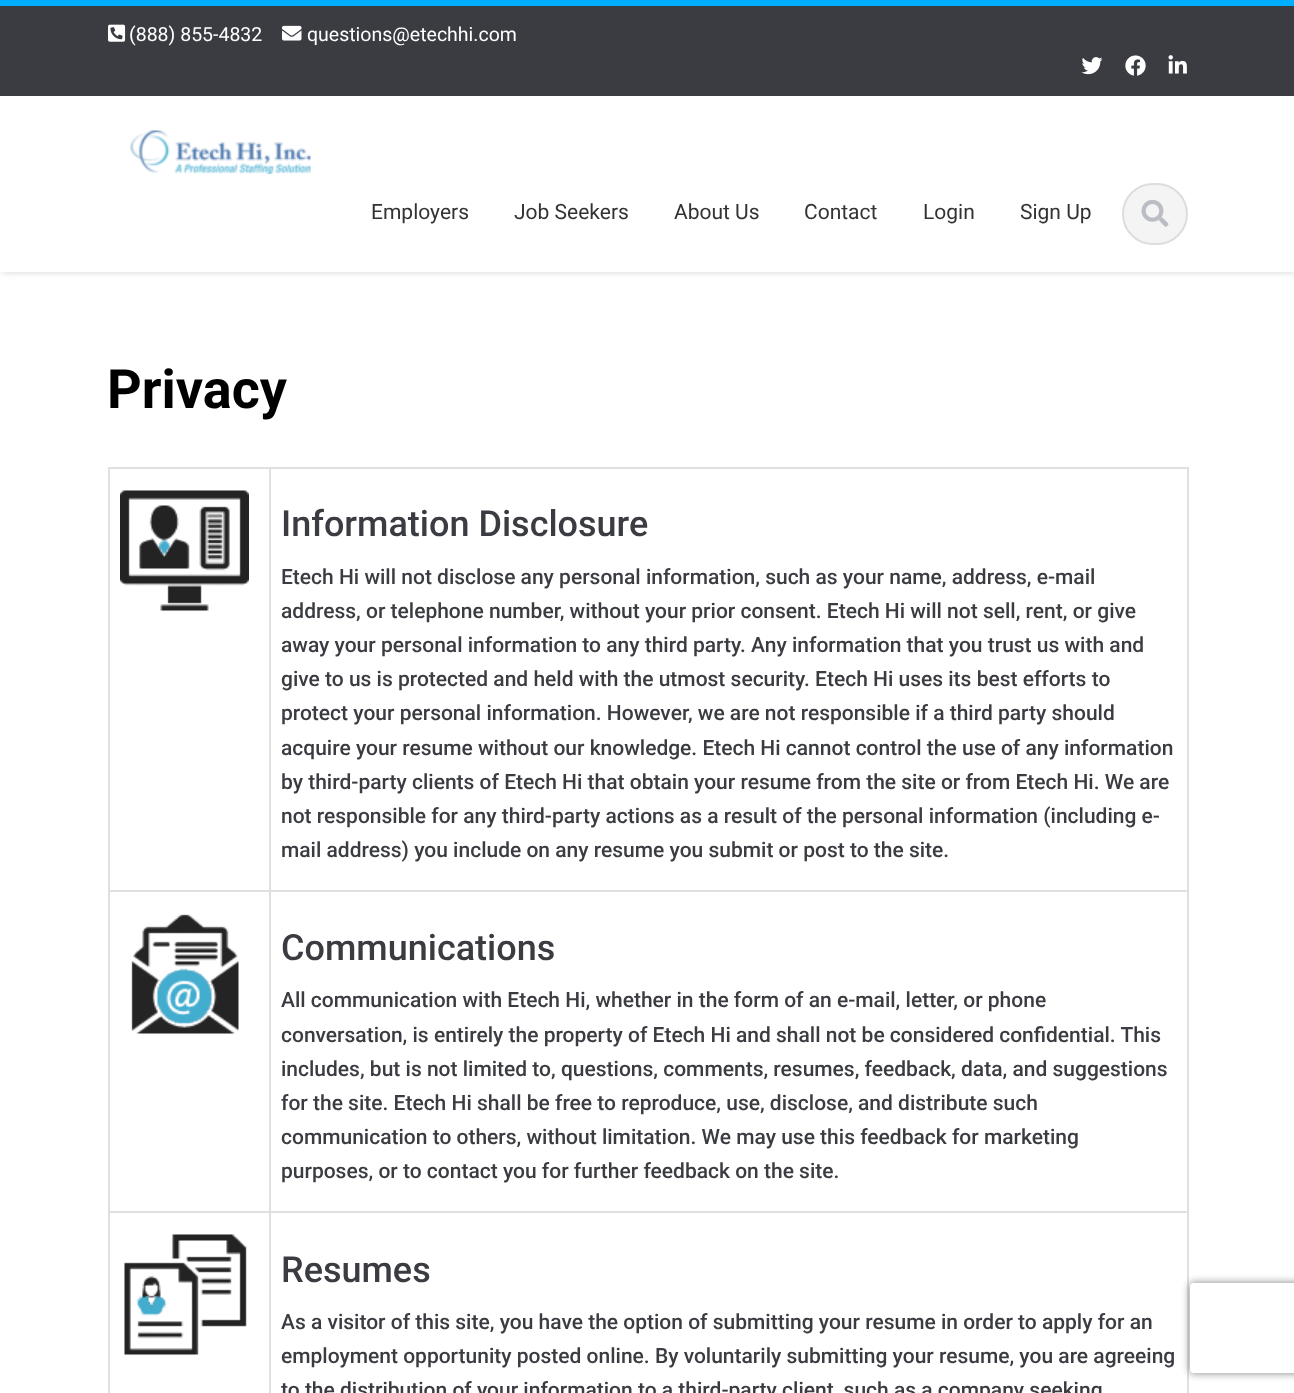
<!DOCTYPE html>
<meta charset="utf-8">
<style>body { margin: 0 } canvas { display: block }</style>
<canvas id="canvas" width="1294" height="1393"></canvas>
<img id="img1" src="images/1.png" hidden>
<img id="img2" src="images/2.png" hidden>
<img id="img3" src="images/3.png" hidden>
<img id="img4" src="images/4.png" hidden>
<img id="img5" src="images/5.png" hidden>
<img id="img6" src="images/6.png" hidden>
<img id="img7" src="images/7.png" hidden>
<img id="img8" src="images/8.png" hidden>
<img id="img9" src="images/9.png" hidden>
<img id="img10" src="images/10.png" hidden>
<script>
window.onload = function () {
    const canvas = document.getElementById('canvas');
    const context = canvas.getContext('2d');
    context.miterLimit = 4;
    context.fontKerning = 'normal';

    context.fillStyle = 'rgb(255, 255, 255)';
    context.fillRect(0, 0, 1294, 1393);
    context.fillStyle = 'rgb(221, 221, 221)';
    context.filter = 'blur(3px)';
    context.beginPath();
    context.rect(2, 2, 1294, 271);
    context.fill();
    context.filter = 'none';
    context.fillStyle = 'rgb(58, 60, 65)';
    context.fillRect(0, 6, 1294, 90);
    context.fillStyle = 'rgb(0, 174, 255)';
    context.fillRect(0, 0, 1294, 6);
    context.drawImage(document.getElementById('img1'), 108, 24, 18, 18);
    context.drawImage(document.getElementById('img2'), 282, 25, 20, 16);
    context.drawImage(document.getElementById('img3'), 1081, 57, 22, 18);
    context.drawImage(document.getElementById('img4'), 1125, 55, 21, 21);
    context.drawImage(document.getElementById('img5'), 1168, 55, 19, 19);
    context.fillStyle = 'rgb(255, 255, 255)';
    context.fillRect(0, 96, 1294, 176);
    context.drawImage(document.getElementById('img6'), 130, 130, 181, 44);
    context.fillStyle = 'rgb(244, 244, 244)';
    context.beginPath();
    context.roundRect(1123, 184, 64, 60, 30);
    context.fill();
    context.strokeStyle = 'rgb(221, 221, 221)';
    context.lineWidth = 2;
    context.stroke();
    context.drawImage(document.getElementById('img7'), 1141, 199, 28, 28);
    context.fillStyle = 'rgb(224, 224, 224)';
    context.fillRect(1187, 467, 2, 926);
    context.fillRect(108, 467, 2, 926);
    context.fillRect(108, 467, 1080, 2);
    context.drawImage(document.getElementById('img8'), 120, 490, 129, 121);
    context.fillRect(108, 890, 1080, 2);
    context.drawImage(document.getElementById('img9'), 131, 914, 108, 120);
    context.fillRect(108, 1211, 1080, 2);
    context.drawImage(document.getElementById('img10'), 124, 1234, 123, 121);
    context.fillRect(269, 467, 2, 926);
    context.save();
    context.beginPath();
    context.moveTo(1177, 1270);
    context.lineTo(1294, 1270);
    context.lineTo(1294, 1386);
    context.lineTo(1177, 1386);
    context.closePath();
    context.moveTo(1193, 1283);
    context.lineTo(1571, 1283);
    context.bezierCurveTo(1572.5, 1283, 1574, 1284.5, 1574, 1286);
    context.lineTo(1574, 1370);
    context.bezierCurveTo(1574, 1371.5, 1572.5, 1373, 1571, 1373);
    context.lineTo(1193, 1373);
    context.bezierCurveTo(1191.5, 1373, 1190, 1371.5, 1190, 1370);
    context.lineTo(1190, 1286);
    context.bezierCurveTo(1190, 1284.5, 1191.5, 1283, 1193, 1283);
    context.closePath();
    context.clip('evenodd');
    context.fillStyle = 'rgb(128, 128, 128)';
    context.filter = 'blur(4px)';
    context.beginPath();
    context.roundRect(1190, 1283, 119, 90, 3);
    context.fill();
    context.filter = 'none';
    context.restore();
    context.font = '19.5px Roboto';
    context.fillStyle = 'rgb(255, 255, 255)';
    context.fillText('(888) 855-4832', 129, 41);
    context.fillText('questions@etechhi.com', 307, 41);
    context.font = '21px Roboto';
    context.fillStyle = 'rgb(51, 51, 51)';
    context.fillText('Employers', 371, 219);
    context.fillText('Job Seekers', 514, 219);
    context.fillText('About Us', 674, 219);
    context.fillText('Contact', 804, 219);
    context.fillText('Login', 923, 219);
    context.fillText('Sign Up', 1020, 219);
    context.font = 'bold 54px Roboto';
    context.fillStyle = 'rgb(0, 0, 0)';
    context.fillText('Privacy', 107, 408);
    context.font = '500 36px Roboto';
    context.fillStyle = 'rgb(58, 60, 65)';
    context.fillText('Information Disclosure', 281, 536);
    context.font = '500 21px Roboto';
    context.fillText('Etech Hi will not disclose any personal information, such as your name, address, e-mail', 281, 584);
    context.fillText('address, or telephone number, without your prior consent. Etech Hi will not sell, rent, or give', 281, 618);
    context.fillText('away your personal information to any third party. Any information that you trust us with and', 281, 652);
    context.fillText('give to us is protected and held with the utmost security. Etech Hi uses its best efforts to', 281, 686);
    context.fillText('protect your personal information. However, we are not responsible if a third party should', 281, 720);
    context.fillText('acquire your resume without our knowledge. Etech Hi cannot control the use of any information', 281, 755);
    context.fillText('by third-party clients of Etech Hi that obtain your resume from the site or from Etech Hi. We are', 281, 789);
    context.fillText('not responsible for any third-party actions as a result of the personal information (including e-', 281, 823);
    context.fillText('mail address) you include on any resume you submit or post to the site.', 281, 857);
    context.font = '500 36px Roboto';
    context.fillText('Communications', 281, 960);
    context.font = '500 21px Roboto';
    context.fillText('All communication with Etech Hi, whether in the form of an e-mail, letter, or phone', 281, 1007);
    context.fillText('conversation, is entirely the property of Etech Hi and shall not be considered confidential. This', 281, 1042);
    context.fillText('includes, but is not limited to, questions, comments, resumes, feedback, data, and suggestions', 281, 1076);
    context.fillText('for the site. Etech Hi shall be free to reproduce, use, disclose, and distribute such', 281, 1110);
    context.fillText('communication to others, without limitation. We may use this feedback for marketing', 281, 1144);
    context.fillText('purposes, or to contact you for further feedback on the site.', 281, 1178);
    context.font = '500 36px Roboto';
    context.fillText('Resumes', 281, 1282);
    context.font = '500 21px Roboto';
    context.fillText('As a visitor of this site, you have the option of submitting your resume in order to apply for an', 281, 1329);
    context.fillText('employment opportunity posted online. By voluntarily submitting your resume, you are agreeing', 281, 1363);
    context.fillText('to the distribution of your information to a third-party client, such as a company seeking', 281, 1397);
};
</script>
